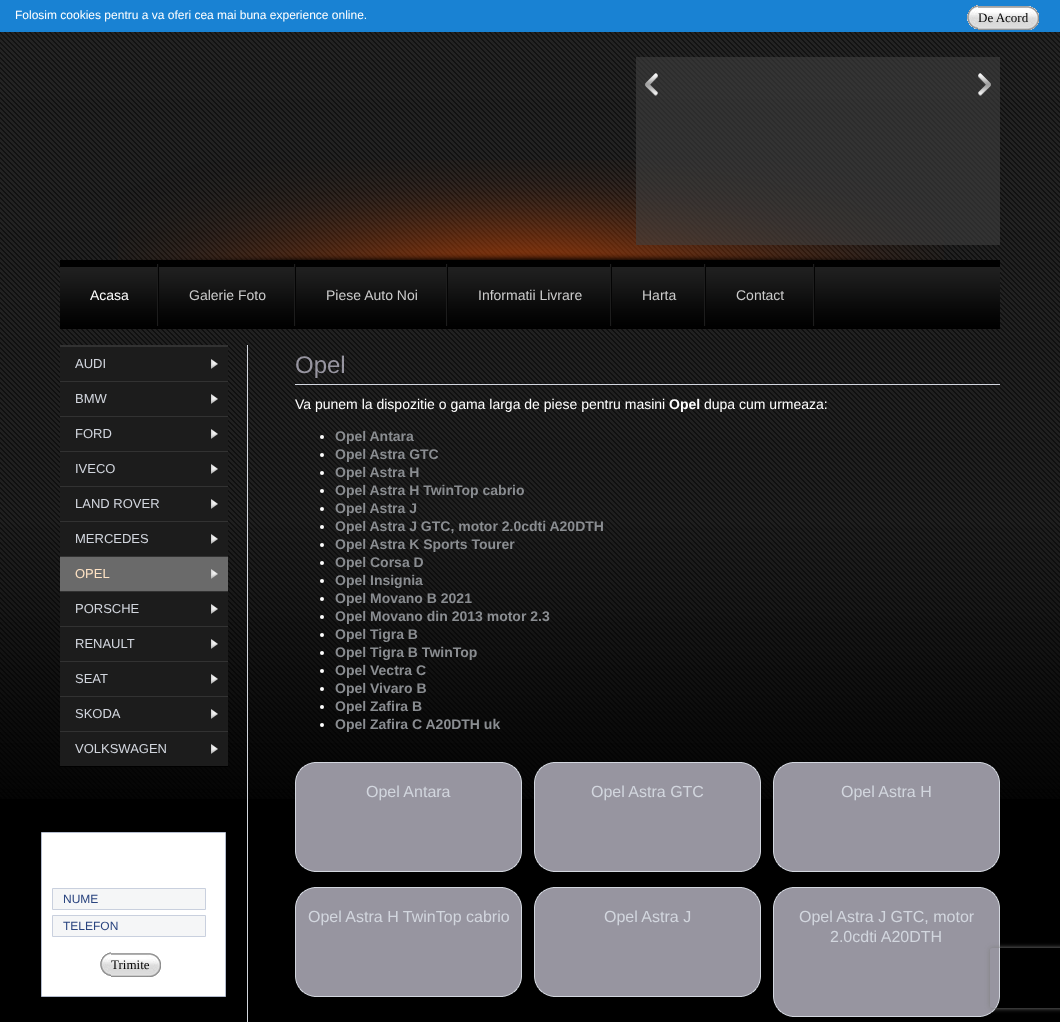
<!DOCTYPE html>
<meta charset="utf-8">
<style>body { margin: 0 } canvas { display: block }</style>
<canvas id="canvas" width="1060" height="1022"></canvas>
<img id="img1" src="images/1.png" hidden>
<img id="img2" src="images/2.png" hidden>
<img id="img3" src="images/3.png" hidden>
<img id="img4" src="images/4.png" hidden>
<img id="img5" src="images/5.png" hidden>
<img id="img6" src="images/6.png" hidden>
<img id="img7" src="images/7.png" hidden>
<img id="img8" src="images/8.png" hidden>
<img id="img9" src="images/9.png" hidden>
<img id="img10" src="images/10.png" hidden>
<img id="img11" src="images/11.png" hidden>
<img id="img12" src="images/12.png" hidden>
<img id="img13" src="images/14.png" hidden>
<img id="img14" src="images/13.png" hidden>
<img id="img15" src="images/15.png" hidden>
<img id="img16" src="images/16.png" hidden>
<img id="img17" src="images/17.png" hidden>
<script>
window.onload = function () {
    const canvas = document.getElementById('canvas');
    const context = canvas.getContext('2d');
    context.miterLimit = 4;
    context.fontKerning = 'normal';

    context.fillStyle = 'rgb(0, 0, 0)';
    context.fillRect(0, 0, 1060, 1022);
    context.drawImage(document.getElementById('img1'), 0, 32, 1060, 767);
    context.fillStyle = 'rgb(25, 130, 211)';
    context.fillRect(0, 0, 1060, 32);
    context.drawImage(document.getElementById('img2'), 967, 5, 11, 24);
    context.drawImage(document.getElementById('img3'), 978, 6, 61, 24);
    context.drawImage(document.getElementById('img4'), 118, 160, 826, 100);
    context.fillStyle = 'rgba(63, 63, 63, 0.6)';
    context.fillRect(636, 57, 364, 188);
    context.drawImage(document.getElementById('img5'), 645, 73, 13, 23);
    context.drawImage(document.getElementById('img6'), 978, 73, 13, 23);
    context.drawImage(document.getElementById('img7'), 60, 260, 940, 69);
    context.drawImage(document.getElementById('img8'), 157, 264, 2, 62);
    context.drawImage(document.getElementById('img8'), 294, 264, 2, 62);
    context.drawImage(document.getElementById('img8'), 446, 264, 2, 62);
    context.drawImage(document.getElementById('img8'), 610, 264, 2, 62);
    context.drawImage(document.getElementById('img8'), 704, 264, 2, 62);
    context.drawImage(document.getElementById('img8'), 813, 264, 2, 62);
    context.fillStyle = 'rgb(210, 214, 221)';
    context.fillRect(247, 345, 1, 677);
    context.fillStyle = 'rgb(28, 28, 28)';
    context.fillRect(60, 347, 168, 419);
    context.fillStyle = 'rgb(50, 50, 50)';
    context.fillRect(60, 345, 168, 2);
    context.fillStyle = 'rgb(0, 0, 0)';
    context.fillRect(60, 766, 168, 1);
    context.drawImage(document.getElementById('img9'), 211, 359, 7, 10);
    context.drawImage(document.getElementById('img9'), 211, 394, 7, 10);
    context.fillStyle = 'rgb(50, 50, 50)';
    context.fillRect(60, 381, 168, 1);
    context.drawImage(document.getElementById('img9'), 211, 429, 7, 10);
    context.fillRect(60, 416, 168, 1);
    context.drawImage(document.getElementById('img9'), 211, 464, 7, 10);
    context.fillRect(60, 451, 168, 1);
    context.drawImage(document.getElementById('img9'), 211, 499, 7, 10);
    context.fillRect(60, 486, 168, 1);
    context.drawImage(document.getElementById('img9'), 211, 534, 7, 10);
    context.fillRect(60, 521, 168, 1);
    context.fillStyle = 'rgb(106, 106, 106)';
    context.fillRect(60, 557, 168, 34);
    context.drawImage(document.getElementById('img10'), 211, 569, 7, 10);
    context.fillStyle = 'rgb(50, 50, 50)';
    context.fillRect(60, 556, 168, 1);
    context.drawImage(document.getElementById('img9'), 211, 604, 7, 10);
    context.fillRect(60, 591, 168, 1);
    context.drawImage(document.getElementById('img9'), 211, 639, 7, 10);
    context.fillRect(60, 626, 168, 1);
    context.drawImage(document.getElementById('img9'), 211, 674, 7, 10);
    context.fillRect(60, 661, 168, 1);
    context.drawImage(document.getElementById('img9'), 211, 709, 7, 10);
    context.fillRect(60, 696, 168, 1);
    context.drawImage(document.getElementById('img9'), 211, 744, 7, 10);
    context.fillRect(60, 731, 168, 1);
    context.fillStyle = 'rgb(255, 255, 255)';
    context.beginPath();
    context.rect(41.5, 832.5, 184, 164);
    context.fill();
    context.strokeStyle = 'rgb(180, 188, 205)';
    context.stroke();
    context.fillStyle = 'rgb(245, 246, 247)';
    context.beginPath();
    context.rect(52.5, 888.5, 153, 21);
    context.fill();
    context.strokeStyle = 'rgb(201, 208, 222)';
    context.stroke();
    context.beginPath();
    context.rect(52.5, 915.5, 153, 21);
    context.fill();
    context.stroke();
    context.drawImage(document.getElementById('img11'), 100, 952, 11, 24);
    context.drawImage(document.getElementById('img12'), 111, 953, 50, 24);
    context.fillStyle = 'rgb(151, 149, 160)';
    context.fillRect(774, 907, 225, 90);
    context.fillStyle = 'rgb(210, 214, 222)';
    context.fillRect(999, 907, 1, 90);
    context.drawImage(document.getElementById('img13'), 773, 997, 227, 20);
    context.save();
    context.beginPath();
    context.moveTo(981, 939);
    context.lineTo(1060, 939);
    context.lineTo(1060, 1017);
    context.lineTo(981, 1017);
    context.closePath();
    context.moveTo(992, 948);
    context.lineTo(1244, 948);
    context.bezierCurveTo(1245, 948, 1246, 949, 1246, 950);
    context.lineTo(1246, 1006);
    context.bezierCurveTo(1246, 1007, 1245, 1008, 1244, 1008);
    context.lineTo(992, 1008);
    context.bezierCurveTo(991, 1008, 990, 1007, 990, 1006);
    context.lineTo(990, 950);
    context.bezierCurveTo(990, 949, 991, 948, 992, 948);
    context.closePath();
    context.clip('evenodd');
    context.fillStyle = 'rgb(128, 128, 128)';
    context.filter = 'blur(2.5px)';
    context.beginPath();
    context.roundRect(990, 948, 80, 60, 2);
    context.fill();
    context.filter = 'none';
    context.restore();
    context.fillRect(295, 384, 705, 1);
    context.fillStyle = 'rgb(255, 255, 255)';
    context.beginPath();
    context.arc(322, 437, 2, 0, 2 * Math.PI);
    context.fill();
    context.beginPath();
    context.arc(322, 455, 2, 0, 2 * Math.PI);
    context.fill();
    context.beginPath();
    context.arc(322, 473, 2, 0, 2 * Math.PI);
    context.fill();
    context.beginPath();
    context.arc(322, 491, 2, 0, 2 * Math.PI);
    context.fill();
    context.beginPath();
    context.arc(322, 509, 2, 0, 2 * Math.PI);
    context.fill();
    context.beginPath();
    context.arc(322, 527, 2, 0, 2 * Math.PI);
    context.fill();
    context.beginPath();
    context.arc(322, 545, 2, 0, 2 * Math.PI);
    context.fill();
    context.beginPath();
    context.arc(322, 563, 2, 0, 2 * Math.PI);
    context.fill();
    context.beginPath();
    context.arc(322, 581, 2, 0, 2 * Math.PI);
    context.fill();
    context.beginPath();
    context.arc(322, 599, 2, 0, 2 * Math.PI);
    context.fill();
    context.beginPath();
    context.arc(322, 617, 2, 0, 2 * Math.PI);
    context.fill();
    context.beginPath();
    context.arc(322, 635, 2, 0, 2 * Math.PI);
    context.fill();
    context.beginPath();
    context.arc(322, 653, 2, 0, 2 * Math.PI);
    context.fill();
    context.beginPath();
    context.arc(322, 671, 2, 0, 2 * Math.PI);
    context.fill();
    context.beginPath();
    context.arc(322, 689, 2, 0, 2 * Math.PI);
    context.fill();
    context.beginPath();
    context.arc(322, 707, 2, 0, 2 * Math.PI);
    context.fill();
    context.beginPath();
    context.arc(322, 725, 2, 0, 2 * Math.PI);
    context.fill();
    context.drawImage(document.getElementById('img14'), 295, 762, 227, 20);
    context.fillStyle = 'rgb(151, 149, 160)';
    context.fillRect(296, 782, 225, 70);
    context.fillStyle = 'rgb(210, 214, 222)';
    context.fillRect(521, 782, 1, 70);
    context.fillRect(295, 782, 1, 70);
    context.drawImage(document.getElementById('img13'), 295, 852, 227, 20);
    context.drawImage(document.getElementById('img15'), 534, 762, 227, 20);
    context.fillStyle = 'rgb(151, 149, 160)';
    context.fillRect(535, 782, 225, 70);
    context.fillStyle = 'rgb(210, 214, 222)';
    context.fillRect(760, 782, 1, 70);
    context.fillRect(534, 782, 1, 70);
    context.drawImage(document.getElementById('img13'), 534, 852, 227, 20);
    context.drawImage(document.getElementById('img16'), 773, 762, 227, 20);
    context.fillStyle = 'rgb(151, 149, 160)';
    context.fillRect(774, 782, 225, 70);
    context.fillStyle = 'rgb(210, 214, 222)';
    context.fillRect(999, 782, 1, 70);
    context.fillRect(773, 782, 1, 70);
    context.drawImage(document.getElementById('img13'), 773, 852, 227, 20);
    context.drawImage(document.getElementById('img17'), 295, 887, 227, 20);
    context.fillStyle = 'rgb(151, 149, 160)';
    context.fillRect(296, 907, 225, 70);
    context.fillStyle = 'rgb(210, 214, 222)';
    context.fillRect(521, 907, 1, 70);
    context.fillRect(295, 907, 1, 70);
    context.drawImage(document.getElementById('img13'), 295, 977, 227, 20);
    context.drawImage(document.getElementById('img17'), 534, 887, 227, 20);
    context.fillStyle = 'rgb(151, 149, 160)';
    context.fillRect(535, 907, 225, 70);
    context.fillStyle = 'rgb(210, 214, 222)';
    context.fillRect(760, 907, 1, 70);
    context.fillRect(534, 907, 1, 70);
    context.drawImage(document.getElementById('img13'), 534, 977, 227, 20);
    context.drawImage(document.getElementById('img17'), 773, 887, 227, 20);
    context.fillRect(773, 907, 1, 90);
    context.font = '12px Liberation Sans';
    context.fillStyle = 'rgb(255, 255, 255)';
    context.fillText('Folosim cookies pentru a va oferi cea mai buna experience online.', 15, 19);
    context.font = '13px Liberation Serif';
    context.fillStyle = 'rgb(0, 0, 0)';
    context.fillText('De Acord', 978, 22);
    context.font = '14px Liberation Sans';
    context.fillStyle = 'rgb(255, 255, 255)';
    context.fillText('Acasa', 90, 300);
    context.fillStyle = 'rgb(204, 204, 204)';
    context.fillText('Galerie Foto', 189, 300);
    context.fillText('Piese Auto Noi', 326, 300);
    context.fillText('Informatii Livrare', 478, 300);
    context.fillText('Harta', 642, 300);
    context.fillText('Contact', 736, 300);
    context.font = '13px Liberation Sans';
    context.fillStyle = 'rgb(210, 214, 222)';
    context.fillText('AUDI', 75, 368);
    context.fillText('BMW', 75, 403);
    context.fillText('FORD', 75, 438);
    context.fillText('IVECO', 75, 473);
    context.fillText('LAND ROVER', 75, 508);
    context.fillText('MERCEDES', 75, 543);
    context.fillStyle = 'rgb(255, 227, 196)';
    context.fillText('OPEL', 75, 578);
    context.fillStyle = 'rgb(210, 214, 222)';
    context.fillText('PORSCHE', 75, 613);
    context.fillText('RENAULT', 75, 648);
    context.fillText('SEAT', 75, 683);
    context.fillText('SKODA', 75, 718);
    context.fillText('VOLKSWAGEN', 75, 753);
    context.font = '12px Liberation Sans';
    context.fillStyle = 'rgb(41, 68, 127)';
    context.fillText('NUME', 63, 903);
    context.fillText('TELEFON', 63, 930);
    context.font = '13px Liberation Serif';
    context.fillStyle = 'rgb(0, 0, 0)';
    context.fillText('Trimite', 111, 969);
    context.font = '24px Liberation Sans';
    context.fillStyle = 'rgb(151, 149, 160)';
    context.fillText('Opel', 295, 373);
    context.font = '14px Liberation Sans';
    context.fillStyle = 'rgb(255, 255, 255)';
    context.fillText('Va punem la dispozitie o gama larga de piese pentru masini', 295, 409);
    context.font = 'bold 14px Liberation Sans';
    context.fillText('Opel', 669, 409);
    context.font = '14px Liberation Sans';
    context.fillText('dupa cum urmeaza:', 704, 409);
    context.font = 'bold 14px Liberation Sans';
    context.fillStyle = 'rgb(138, 141, 145)';
    context.fillText('Opel Antara', 335, 441);
    context.fillText('Opel Astra GTC', 335, 459);
    context.fillText('Opel Astra H', 335, 477);
    context.fillText('Opel Astra H TwinTop cabrio', 335, 495);
    context.fillText('Opel Astra J', 335, 513);
    context.fillText('Opel Astra J GTC, motor 2.0cdti A20DTH', 335, 531);
    context.fillText('Opel Astra K Sports Tourer', 335, 549);
    context.fillText('Opel Corsa D', 335, 567);
    context.fillText('Opel Insignia', 335, 585);
    context.fillText('Opel Movano B 2021', 335, 603);
    context.fillText('Opel Movano din 2013 motor 2.3', 335, 621);
    context.fillText('Opel Tigra B', 335, 639);
    context.fillText('Opel Tigra B TwinTop', 335, 657);
    context.fillText('Opel Vectra C', 335, 675);
    context.fillText('Opel Vivaro B', 335, 693);
    context.fillText('Opel Zafira B', 335, 711);
    context.fillText('Opel Zafira C A20DTH uk', 335, 729);
    context.font = '16px Liberation Sans';
    context.fillStyle = 'rgb(210, 214, 222)';
    context.fillText('Opel Antara', 366, 797);
    context.fillText('Opel Astra GTC', 591, 797);
    context.fillText('Opel Astra H', 841, 797);
    context.fillText('Opel Astra H TwinTop cabrio', 308, 922);
    context.fillText('Opel Astra J', 604, 922);
    context.fillText('Opel Astra J GTC, motor', 799, 922);
    context.fillText('2.0cdti A20DTH', 830, 942);
};
</script>
